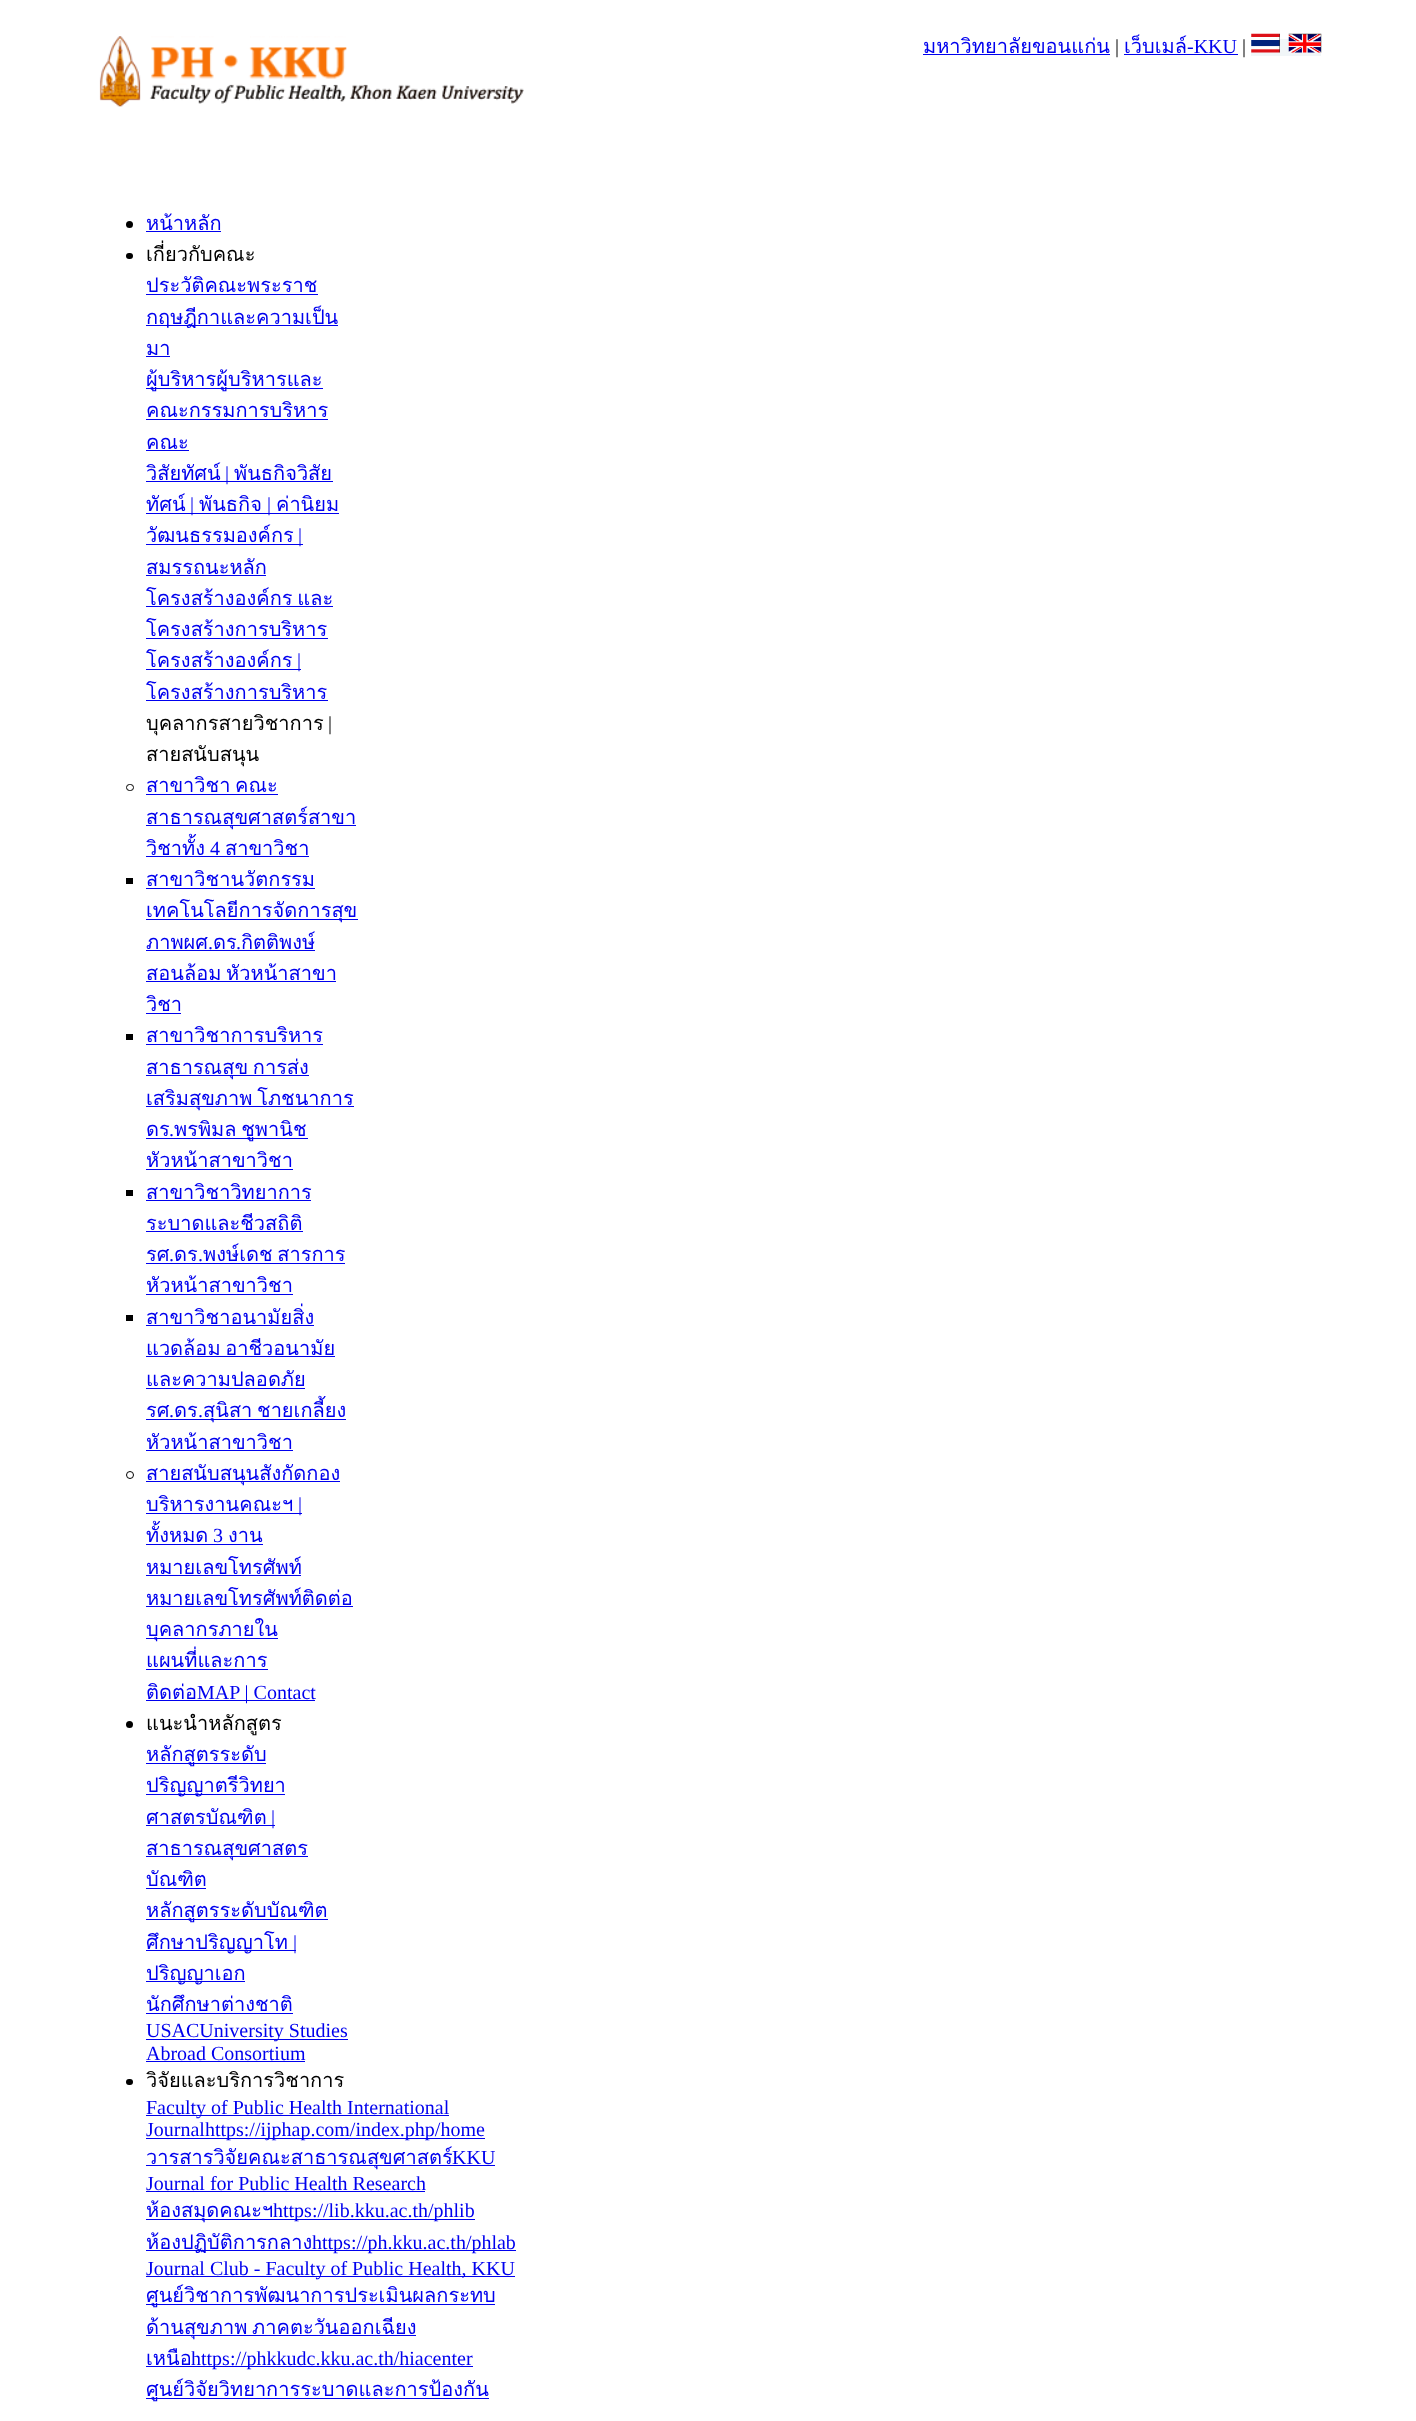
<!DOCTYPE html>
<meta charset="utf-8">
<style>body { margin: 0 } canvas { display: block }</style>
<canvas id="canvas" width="1416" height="2421"></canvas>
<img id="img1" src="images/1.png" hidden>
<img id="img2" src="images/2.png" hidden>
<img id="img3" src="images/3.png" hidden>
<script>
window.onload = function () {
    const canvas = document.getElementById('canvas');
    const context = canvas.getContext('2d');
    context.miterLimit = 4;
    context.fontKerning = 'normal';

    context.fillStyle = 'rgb(255, 255, 255)';
    context.fillRect(0, 0, 1416, 2421);
    context.drawImage(document.getElementById('img1'), 99, 36, 425, 71);
    context.fillStyle = 'rgb(0, 0, 238)';
    context.fillRect(923, 54, 187, 1);
    context.fillRect(1124, 54, 114, 1);
    context.fillStyle = 'rgb(241, 246, 248)';
    context.fillRect(1251, 39, 38, 17);
    context.drawImage(document.getElementById('img2'), 1251, 33, 29, 20);
    context.fillRect(1289, 52, 32, 4);
    context.drawImage(document.getElementById('img3'), 1288, 33, 34, 20);
    context.fillStyle = 'rgb(0, 0, 0)';
    context.beginPath();
    context.arc(129.5, 224.5, 3.5, 0, 2 * Math.PI);
    context.fill();
    context.fillStyle = 'rgb(0, 0, 238)';
    context.fillRect(146, 231, 75, 1);
    context.fillStyle = 'rgb(0, 0, 0)';
    context.beginPath();
    context.roundRect(126, 253, 7, 6, 3);
    context.fill();
    context.fillStyle = 'rgb(0, 0, 238)';
    context.fillRect(146, 294, 172, 1);
    context.fillRect(146, 325, 192, 1);
    context.fillRect(146, 356, 24, 1);
    context.fillRect(146, 388, 177, 1);
    context.fillRect(146, 419, 182, 1);
    context.fillRect(146, 450, 43, 1);
    context.fillRect(146, 481, 187, 1);
    context.fillRect(146, 513, 193, 1);
    context.fillRect(146, 544, 157, 1);
    context.fillRect(146, 575, 120, 1);
    context.fillRect(146, 606, 187, 1);
    context.fillRect(146, 638, 182, 1);
    context.fillRect(146, 669, 155, 1);
    context.fillRect(146, 700, 182, 1);
    context.beginPath();
    context.roundRect(126.5, 784.5, 7, 6, 3);
    context.strokeStyle = 'rgb(0, 0, 0)';
    context.stroke();
    context.fillRect(146, 794, 132, 1);
    context.fillRect(146, 825, 210, 1);
    context.fillRect(146, 856, 163, 1);
    context.fillStyle = 'rgb(0, 0, 0)';
    context.fillRect(126, 878, 7, 6);
    context.fillStyle = 'rgb(0, 0, 238)';
    context.fillRect(146, 888, 169, 1);
    context.fillRect(146, 919, 212, 1);
    context.fillRect(146, 950, 169, 1);
    context.fillRect(146, 981, 190, 1);
    context.fillRect(146, 1013, 35, 1);
    context.fillStyle = 'rgb(0, 0, 0)';
    context.fillRect(126, 1034, 7, 6);
    context.fillStyle = 'rgb(0, 0, 238)';
    context.fillRect(146, 1044, 177, 1);
    context.fillRect(146, 1075, 163, 1);
    context.fillRect(146, 1106, 208, 1);
    context.fillRect(146, 1138, 162, 1);
    context.fillRect(146, 1169, 147, 1);
    context.fillStyle = 'rgb(0, 0, 0)';
    context.fillRect(126, 1190, 7, 6);
    context.fillStyle = 'rgb(0, 0, 238)';
    context.fillRect(146, 1200, 165, 1);
    context.fillRect(146, 1231, 157, 1);
    context.fillRect(146, 1263, 199, 1);
    context.fillRect(146, 1294, 147, 1);
    context.fillStyle = 'rgb(0, 0, 0)';
    context.fillRect(126, 1315, 7, 6);
    context.fillStyle = 'rgb(0, 0, 238)';
    context.fillRect(146, 1325, 168, 1);
    context.fillRect(146, 1356, 189, 1);
    context.fillRect(146, 1388, 159, 1);
    context.fillRect(146, 1419, 200, 1);
    context.fillRect(146, 1450, 147, 1);
    context.beginPath();
    context.arc(130, 1475, 3.5, 0, 2 * Math.PI);
    context.stroke();
    context.fillRect(146, 1481, 194, 1);
    context.fillRect(146, 1513, 156, 1);
    context.fillRect(146, 1544, 117, 1);
    context.fillRect(146, 1575, 155, 1);
    context.fillRect(146, 1606, 207, 1);
    context.fillRect(146, 1638, 132, 1);
    context.fillRect(146, 1669, 122, 1);
    context.fillRect(146, 1700, 169, 1);
    context.fillStyle = 'rgb(0, 0, 0)';
    context.beginPath();
    context.arc(129.5, 1724.5, 3.5, 0, 2 * Math.PI);
    context.fill();
    context.fillStyle = 'rgb(0, 0, 238)';
    context.fillRect(146, 1763, 120, 1);
    context.fillRect(146, 1794, 139, 1);
    context.fillRect(146, 1825, 129, 1);
    context.fillRect(146, 1856, 162, 1);
    context.fillRect(146, 1888, 60, 1);
    context.fillRect(146, 1919, 182, 1);
    context.fillRect(146, 1950, 150, 1);
    context.fillRect(146, 1981, 99, 1);
    context.fillRect(146, 2013, 147, 1);
    context.fillRect(146, 2039, 202, 1);
    context.fillRect(146, 2061, 159, 1);
    context.fillStyle = 'rgb(0, 0, 0)';
    context.beginPath();
    context.roundRect(126, 2079, 7, 6, 3);
    context.fill();
    context.fillStyle = 'rgb(0, 0, 238)';
    context.fillRect(146, 2115, 303, 1);
    context.fillRect(146, 2138, 339, 1);
    context.fillRect(146, 2165, 349, 1);
    context.fillRect(146, 2191, 279, 1);
    context.fillRect(146, 2219, 329, 1);
    context.fillRect(146, 2250, 370, 1);
    context.fillRect(146, 2276, 369, 1);
    context.fillRect(146, 2304, 349, 1);
    context.fillRect(146, 2335, 270, 1);
    context.fillRect(146, 2366, 327, 1);
    context.fillRect(146, 2398, 343, 1);
    context.font = '20px Loma';
    context.fillText('มหาวิทยาลัยขอนแก่น', 923, 53);
    context.font = '20px Liberation Serif';
    context.fillStyle = 'rgb(0, 0, 0)';
    context.fillText('|', 1115, 53);
    context.font = '20px Loma';
    context.fillStyle = 'rgb(0, 0, 238)';
    context.fillText('เว็บเมล์', 1124, 53);
    context.font = '20px Liberation Serif';
    context.fillText('-KKU', 1187, 53);
    context.fillStyle = 'rgb(0, 0, 0)';
    context.fillText('|', 1242, 53);
    context.font = '20px Loma';
    context.fillStyle = 'rgb(0, 0, 238)';
    context.fillText('หน้าหลัก', 146, 230);
    context.fillStyle = 'rgb(0, 0, 0)';
    context.fillText('เกี่ยวกับคณะ', 146, 261);
    context.fillStyle = 'rgb(0, 0, 238)';
    context.fillText('ประวัติคณะพระราช', 146, 292);
    context.fillText('กฤษฎีกาและความเป็น', 146, 324);
    context.fillText('มา', 146, 355);
    context.fillText('ผู้บริหารผู้บริหารและ', 146, 386);
    context.fillText('คณะกรรมการบริหาร', 146, 417);
    context.fillText('คณะ', 146, 449);
    context.fillText('วิสัยทัศน์', 146, 480);
    context.font = '20px Liberation Serif';
    context.fillText('|', 225, 480);
    context.font = '20px Loma';
    context.fillText('พันธกิจวิสัย', 234, 480);
    context.fillText('ทัศน์', 146, 511);
    context.fillText('ค่านิยม', 276, 511);
    context.font = '20px Liberation Serif';
    context.fillText('|', 190, 511);
    context.font = '20px Loma';
    context.fillText('พันธกิจ', 199, 511);
    context.font = '20px Liberation Serif';
    context.fillText('|', 267, 511);
    context.font = '20px Loma';
    context.fillText('วัฒนธรรมองค์กร', 146, 542);
    context.font = '20px Liberation Serif';
    context.fillText('|', 298, 542);
    context.font = '20px Loma';
    context.fillText('สมรรถนะหลัก', 146, 574);
    context.wordSpacing = '-2px';
    context.fillText('โครงสร้างองค์กร และ', 146, 605);
    context.wordSpacing = '0px';
    context.fillText('โครงสร้างการบริหาร', 146, 636);
    context.fillText('โครงสร้างองค์กร', 146, 667);
    context.font = '20px Liberation Serif';
    context.fillText('|', 297, 667);
    context.font = '20px Loma';
    context.fillText('โครงสร้างการบริหาร', 146, 699);
    context.fillStyle = 'rgb(0, 0, 0)';
    context.fillText('บุคลากรสายวิชาการ', 146, 730);
    context.font = '20px Liberation Serif';
    context.fillText('|', 328, 730);
    context.font = '20px Loma';
    context.fillText('สายสนับสนุน', 146, 761);
    context.wordSpacing = '-2px';
    context.fillStyle = 'rgb(0, 0, 238)';
    context.fillText('สาขาวิชา คณะ', 146, 792);
    context.wordSpacing = '0px';
    context.fillText('สาธารณสุขศาสตร์สาขา', 146, 824);
    context.fillText('วิชาทั้ง', 146, 855);
    context.font = '20px Liberation Serif';
    context.fillText('4', 210, 855);
    context.font = '20px Loma';
    context.fillText('สาขาวิชา', 225, 855);
    context.fillText('สาขาวิชานวัตกรรม', 146, 886);
    context.fillText('เทคโนโลยีการจัดการสุข', 146, 917);
    context.fillText('ภาพผศ', 146, 949);
    context.font = '20px Liberation Serif';
    context.fillText('.', 208, 949);
    context.font = '20px Loma';
    context.fillText('ดร', 213, 949);
    context.font = '20px Liberation Serif';
    context.fillText('.', 236, 949);
    context.font = '20px Loma';
    context.fillText('กิตติพงษ์', 241, 949);
    context.wordSpacing = '-2px';
    context.fillText('สอนล้อม หัวหน้าสาขา', 146, 980);
    context.wordSpacing = '0px';
    context.fillText('วิชา', 146, 1011);
    context.fillText('สาขาวิชาการบริหาร', 146, 1042);
    context.wordSpacing = '-2px';
    context.fillText('สาธารณสุข การส่ง', 146, 1074);
    context.fillText('เสริมสุขภาพ โภชนาการ', 146, 1105);
    context.wordSpacing = '0px';
    context.fillText('ดร', 146, 1136);
    context.font = '20px Liberation Serif';
    context.fillText('.', 169, 1136);
    context.wordSpacing = '-2px';
    context.font = '20px Loma';
    context.fillText('พรพิมล ชูพานิช', 174, 1136);
    context.wordSpacing = '0px';
    context.fillText('หัวหน้าสาขาวิชา', 146, 1167);
    context.fillText('สาขาวิชาวิทยาการ', 146, 1199);
    context.fillText('ระบาดและชีวสถิติ', 146, 1230);
    context.fillText('รศ', 146, 1261);
    context.font = '20px Liberation Serif';
    context.fillText('.', 169, 1261);
    context.font = '20px Loma';
    context.fillText('ดร', 174, 1261);
    context.font = '20px Liberation Serif';
    context.fillText('.', 198, 1261);
    context.wordSpacing = '-2px';
    context.font = '20px Loma';
    context.fillText('พงษ์เดช สารการ', 203, 1261);
    context.wordSpacing = '0px';
    context.fillText('หัวหน้าสาขาวิชา', 146, 1292);
    context.fillText('สาขาวิชาอนามัยสิ่ง', 146, 1324);
    context.wordSpacing = '-2px';
    context.fillText('แวดล้อม อาชีวอนามัย', 146, 1355);
    context.wordSpacing = '0px';
    context.fillText('และความปลอดภัย', 146, 1386);
    context.fillText('รศ', 146, 1417);
    context.font = '20px Liberation Serif';
    context.fillText('.', 169, 1417);
    context.font = '20px Loma';
    context.fillText('ดร', 174, 1417);
    context.font = '20px Liberation Serif';
    context.fillText('.', 198, 1417);
    context.wordSpacing = '-2px';
    context.font = '20px Loma';
    context.fillText('สุนิสา ชายเกลี้ยง', 203, 1417);
    context.wordSpacing = '0px';
    context.fillText('หัวหน้าสาขาวิชา', 146, 1449);
    context.fillText('สายสนับสนุนสังกัดกอง', 146, 1480);
    context.fillText('บริหารงานคณะฯ', 146, 1511);
    context.font = '20px Liberation Serif';
    context.fillText('|', 298, 1511);
    context.font = '20px Loma';
    context.fillText('ทั้งหมด', 146, 1542);
    context.font = '20px Liberation Serif';
    context.fillText('3', 213, 1542);
    context.font = '20px Loma';
    context.fillText('งาน', 228, 1542);
    context.fillText('หมายเลขโทรศัพท์', 146, 1574);
    context.fillText('หมายเลขโทรศัพท์ติดต่อ', 146, 1605);
    context.fillText('บุคลากรภายใน', 146, 1636);
    context.fillText('แผนที่และการ', 146, 1667);
    context.fillText('ติดต่อ', 146, 1699);
    context.font = '20px Liberation Serif';
    context.fillText('MAP | Contact', 197, 1699);
    context.font = '20px Loma';
    context.fillStyle = 'rgb(0, 0, 0)';
    context.fillText('แนะนำหลักสูตร', 146, 1730);
    context.fillStyle = 'rgb(0, 0, 238)';
    context.fillText('หลักสูตรระดับ', 146, 1761);
    context.fillText('ปริญญาตรีวิทยา', 146, 1792);
    context.fillText('ศาสตรบัณฑิต', 146, 1824);
    context.font = '20px Liberation Serif';
    context.fillText('|', 271, 1824);
    context.font = '20px Loma';
    context.fillText('สาธารณสุขศาสตร', 146, 1855);
    context.fillText('บัณฑิต', 146, 1886);
    context.fillText('หลักสูตรระดับบัณฑิต', 146, 1917);
    context.fillText('ศึกษาปริญญาโท', 146, 1949);
    context.font = '20px Liberation Serif';
    context.fillText('|', 293, 1949);
    context.font = '20px Loma';
    context.fillText('ปริญญาเอก', 146, 1980);
    context.fillText('นักศึกษาต่างชาติ', 146, 2011);
    context.font = '20px Liberation Serif';
    context.fillText('USACUniversity Studies', 146, 2037);
    context.fillText('Abroad Consortium', 146, 2060);
    context.font = '20px Loma';
    context.fillStyle = 'rgb(0, 0, 0)';
    context.fillText('วิจัยและบริการวิชาการ', 146, 2087);
    context.font = '20px Liberation Serif';
    context.fillStyle = 'rgb(0, 0, 238)';
    context.fillText('Faculty of Public Health International', 146, 2114);
    context.fillText('Journalhttps://ijphap.com/index.php/home', 146, 2136);
    context.font = '20px Loma';
    context.fillText('วารสารวิจัยคณะสาธารณสุขศาสตร์', 146, 2164);
    context.font = '20px Liberation Serif';
    context.fillText('KKU', 452, 2164);
    context.fillText('Journal for Public Health Research', 146, 2190);
    context.font = '20px Loma';
    context.fillText('ห้องสมุดคณะฯ', 146, 2217);
    context.font = '20px Liberation Serif';
    context.fillText('https://lib.kku.ac.th/phlib', 273, 2217);
    context.font = '20px Loma';
    context.fillText('ห้องปฏิบัติการกลาง', 146, 2249);
    context.font = '20px Liberation Serif';
    context.fillText('https://ph.kku.ac.th/phlab', 312, 2249);
    context.fillText('Journal Club - Faculty of Public Health, KKU', 146, 2275);
    context.font = '20px Loma';
    context.fillText('ศูนย์วิชาการพัฒนาการประเมินผลกระทบ', 146, 2302);
    context.wordSpacing = '-2px';
    context.fillText('ด้านสุขภาพ ภาคตะวันออกเฉียง', 146, 2334);
    context.wordSpacing = '0px';
    context.fillText('เหนือ', 146, 2365);
    context.font = '20px Liberation Serif';
    context.fillText('https://phkkudc.kku.ac.th/hiacenter', 191, 2365);
    context.font = '20px Loma';
    context.fillText('ศูนย์วิจัยวิทยาการระบาดและการป้องกัน', 146, 2396);
};
</script>
